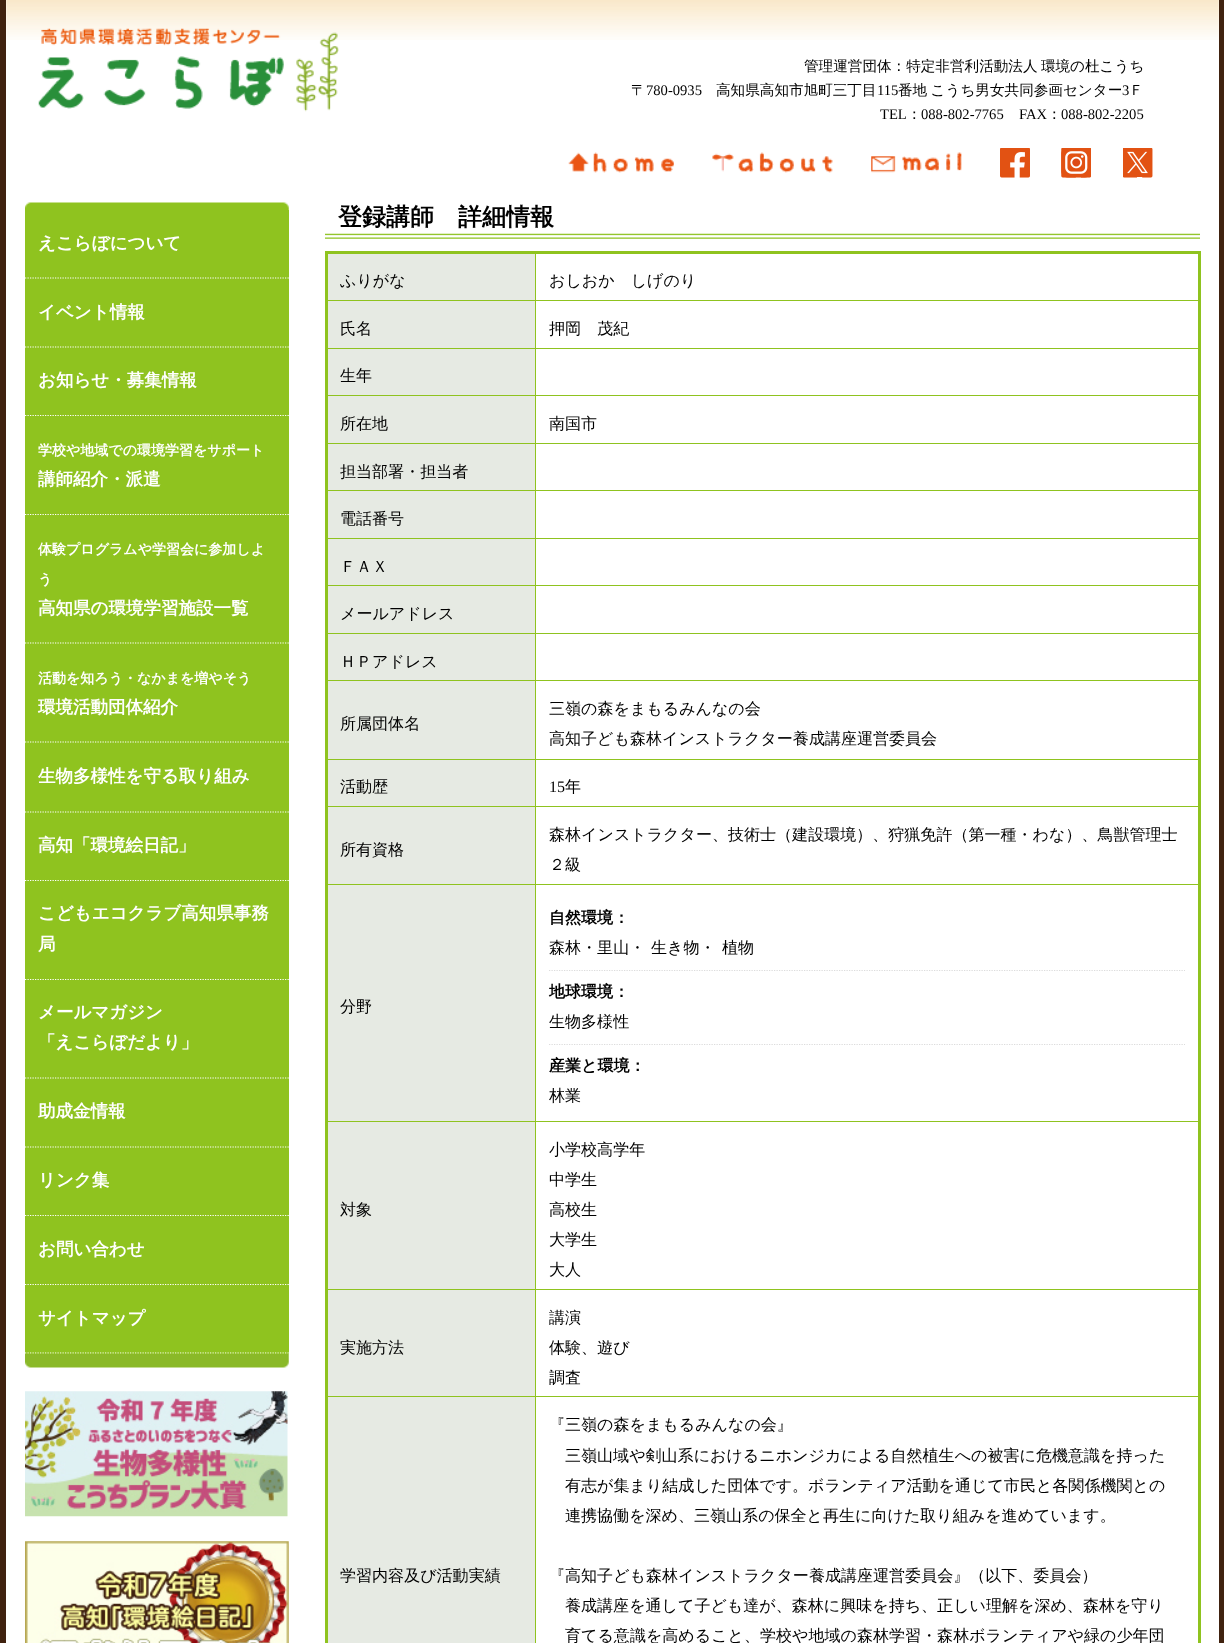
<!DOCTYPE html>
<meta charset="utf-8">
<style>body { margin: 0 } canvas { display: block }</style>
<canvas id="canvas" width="1224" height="1643"></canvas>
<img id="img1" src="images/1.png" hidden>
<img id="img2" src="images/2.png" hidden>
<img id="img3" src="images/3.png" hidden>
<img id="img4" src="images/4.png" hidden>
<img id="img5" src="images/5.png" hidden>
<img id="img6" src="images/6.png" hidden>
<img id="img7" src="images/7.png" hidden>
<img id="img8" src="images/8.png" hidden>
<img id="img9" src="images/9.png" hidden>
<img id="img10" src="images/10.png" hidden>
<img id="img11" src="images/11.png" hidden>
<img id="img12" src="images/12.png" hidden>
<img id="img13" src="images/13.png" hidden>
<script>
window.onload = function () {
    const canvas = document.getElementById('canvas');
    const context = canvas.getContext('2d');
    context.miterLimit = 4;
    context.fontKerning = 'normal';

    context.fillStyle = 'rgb(64, 34, 15)';
    context.fillRect(0, 0, 1224, 1643);
    context.fillStyle = 'rgb(255, 255, 255)';
    context.fillRect(6, 0, 1213, 1643);
    context.drawImage(document.getElementById('img1'), 6, 0, 1213, 40);
    context.drawImage(document.getElementById('img2'), 38, 28, 301, 84);
    context.drawImage(document.getElementById('img3'), 568, 152, 106, 21);
    context.drawImage(document.getElementById('img4'), 712, 152, 121, 21);
    context.drawImage(document.getElementById('img5'), 871, 152, 91, 21);
    context.drawImage(document.getElementById('img6'), 1000, 148, 30, 30);
    context.drawImage(document.getElementById('img7'), 1061, 148, 30, 30);
    context.drawImage(document.getElementById('img8'), 1123, 148, 30, 30);
    context.drawImage(document.getElementById('img9'), 25, 202, 264, 8);
    context.fillStyle = 'rgb(143, 195, 31)';
    context.fillRect(25, 210, 264, 206);
    context.beginPath();
    context.moveTo(25, 278);
    context.lineTo(289, 278);
    context.strokeStyle = 'rgb(255, 255, 255)';
    context.lineWidth = 1.2;
    context.setLineDash([1.25, 1.25]);
    context.stroke();
    context.beginPath();
    context.moveTo(25, 347);
    context.lineTo(289, 347);
    context.stroke();
    context.beginPath();
    context.moveTo(25, 415.5);
    context.lineTo(289, 415.5);
    context.stroke();
    context.fillRect(25, 416, 264, 99);
    context.beginPath();
    context.moveTo(25, 514.5);
    context.lineTo(289, 514.5);
    context.stroke();
    context.fillRect(25, 515, 264, 366);
    context.beginPath();
    context.moveTo(25, 643);
    context.lineTo(289, 643);
    context.stroke();
    context.beginPath();
    context.moveTo(25, 742);
    context.lineTo(289, 742);
    context.stroke();
    context.beginPath();
    context.moveTo(25, 812);
    context.lineTo(289, 812);
    context.stroke();
    context.beginPath();
    context.moveTo(25, 880.5);
    context.lineTo(289, 880.5);
    context.stroke();
    context.fillRect(25, 881, 264, 99);
    context.beginPath();
    context.moveTo(25, 979.5);
    context.lineTo(289, 979.5);
    context.stroke();
    context.fillRect(25, 980, 264, 236);
    context.beginPath();
    context.moveTo(25, 1078);
    context.lineTo(289, 1078);
    context.stroke();
    context.beginPath();
    context.moveTo(25, 1147);
    context.lineTo(289, 1147);
    context.stroke();
    context.beginPath();
    context.moveTo(25, 1215.5);
    context.lineTo(289, 1215.5);
    context.stroke();
    context.fillRect(25, 1216, 264, 69);
    context.beginPath();
    context.moveTo(25, 1284.5);
    context.lineTo(289, 1284.5);
    context.stroke();
    context.fillRect(25, 1285, 264, 69);
    context.beginPath();
    context.moveTo(25, 1353);
    context.lineTo(289, 1353);
    context.stroke();
    context.drawImage(document.getElementById('img10'), 25, 1353, 264, 15);
    context.drawImage(document.getElementById('img11'), 25, 1391, 263, 126);
    context.drawImage(document.getElementById('img12'), 25, 1541, 264, 102);
    context.drawImage(document.getElementById('img13'), 325, 233, 875, 6);
    context.fillRect(535, 300, 665, 1);
    context.fillRect(535, 348, 665, 1);
    context.fillRect(535, 395, 665, 1);
    context.fillRect(535, 443, 665, 1);
    context.fillRect(535, 490, 665, 1);
    context.fillRect(535, 538, 665, 1);
    context.fillRect(535, 585, 665, 1);
    context.fillRect(535, 633, 665, 1);
    context.fillRect(535, 680, 665, 1);
    context.fillRect(535, 759, 665, 1);
    context.fillRect(535, 806, 665, 1);
    context.fillRect(535, 884, 665, 1);
    context.fillRect(535, 1121, 665, 1);
    context.fillRect(535, 1289, 665, 1);
    context.fillStyle = 'rgb(230, 234, 227)';
    context.fillRect(328, 1290, 207, 353);
    context.fillStyle = 'rgb(143, 195, 31)';
    context.fillRect(535, 1396, 665, 1);
    context.fillRect(535, 1396, 1, 247);
    context.fillRect(326, 1396, 210, 1);
    context.fillRect(535, 1289, 1, 109);
    context.fillRect(326, 1289, 210, 1);
    context.fillRect(535, 1121, 1, 169);
    context.fillRect(326, 1121, 210, 1);
    context.fillRect(535, 884, 1, 239);
    context.fillRect(326, 884, 210, 1);
    context.fillRect(535, 806, 1, 79);
    context.fillRect(326, 806, 210, 1);
    context.fillRect(535, 759, 1, 49);
    context.fillRect(326, 759, 210, 1);
    context.fillRect(535, 680, 1, 80);
    context.fillRect(326, 680, 210, 1);
    context.fillRect(535, 633, 1, 48);
    context.fillRect(326, 633, 210, 1);
    context.fillRect(535, 585, 1, 49);
    context.fillRect(326, 585, 210, 1);
    context.fillRect(535, 538, 1, 48);
    context.fillRect(326, 538, 210, 1);
    context.fillRect(535, 490, 1, 49);
    context.fillRect(326, 490, 210, 1);
    context.fillRect(535, 443, 1, 48);
    context.fillRect(326, 443, 210, 1);
    context.fillRect(535, 395, 1, 49);
    context.fillRect(326, 395, 210, 1);
    context.fillRect(535, 348, 1, 48);
    context.fillRect(326, 348, 210, 1);
    context.fillRect(535, 300, 1, 49);
    context.fillRect(326, 300, 210, 1);
    context.fillRect(535, 253, 1, 48);
    context.fillRect(325, 251, 875, 3);
    context.fillRect(1198, 251, 3, 1392);
    context.fillRect(325, 251, 3, 1392);
    context.fillStyle = 'rgb(230, 234, 227)';
    context.fillRect(328, 254, 207, 46);
    context.fillRect(328, 301, 207, 47);
    context.fillRect(328, 349, 207, 46);
    context.fillRect(328, 396, 207, 47);
    context.fillRect(328, 444, 207, 46);
    context.fillRect(328, 491, 207, 47);
    context.fillRect(328, 539, 207, 46);
    context.fillRect(328, 586, 207, 47);
    context.fillRect(328, 634, 207, 46);
    context.fillRect(328, 681, 207, 78);
    context.fillRect(328, 760, 207, 46);
    context.fillRect(328, 807, 207, 77);
    context.fillRect(328, 885, 207, 236);
    context.beginPath();
    context.moveTo(549, 970.5);
    context.lineTo(1185, 970.5);
    context.strokeStyle = 'rgb(220, 220, 220)';
    context.stroke();
    context.beginPath();
    context.moveTo(549, 1044.5);
    context.lineTo(1185, 1044.5);
    context.stroke();
    context.fillRect(328, 1122, 207, 167);
    context.wordSpacing = '-1px';
    context.font = '500 14.6px WenQuanYi Zen Hei';
    context.fillStyle = 'rgb(0, 0, 0)';
    context.fillText('管理運営団体：特定非営利活動法人 環境の杜こうち', 804, 71);
    context.wordSpacing = '0px';
    context.fillText('〒', 631, 95);
    context.font = '14.6px Liberation Serif';
    context.fillText('780-0935', 646, 95);
    context.font = '500 14.6px WenQuanYi Zen Hei';
    context.fillText('高知県高知市旭町三丁目', 716, 95);
    context.font = '14.6px Liberation Serif';
    context.fillText('115', 877, 95);
    context.wordSpacing = '-1px';
    context.font = '500 14.6px WenQuanYi Zen Hei';
    context.fillText('番地 こうち男女共同参画センター', 898, 95);
    context.wordSpacing = '0px';
    context.font = '14.6px Liberation Serif';
    context.fillText('3', 1122, 95);
    context.font = '500 14.6px WenQuanYi Zen Hei';
    context.fillText('Ｆ', 1129, 95);
    context.font = '14.6px Liberation Serif';
    context.fillText('TEL', 880, 119);
    context.font = '500 14.6px WenQuanYi Zen Hei';
    context.fillText('：', 907, 119);
    context.font = '14.6px Liberation Serif';
    context.fillText('088-802-7765', 921, 119);
    context.fillText('FAX', 1019, 119);
    context.font = '500 14.6px WenQuanYi Zen Hei';
    context.fillText('：', 1047, 119);
    context.font = '14.6px Liberation Serif';
    context.fillText('088-802-2205', 1061, 119);
    context.font = 'bold 17.5px WenQuanYi Zen Hei';
    context.fillStyle = 'rgb(255, 255, 255)';
    context.fillText('えこらぼについて', 38, 249);
    context.fillText('イベント情報', 38, 318);
    context.fillText('お知らせ・募集情報', 38, 386);
    context.font = 'bold 14px WenQuanYi Zen Hei';
    context.fillText('学校や地域での環境学習をサポート', 38, 455);
    context.font = 'bold 17.5px WenQuanYi Zen Hei';
    context.fillText('講師紹介・派遣', 38, 485);
    context.font = 'bold 14px WenQuanYi Zen Hei';
    context.fillText('体験プログラムや学習会に参加しよ', 38, 554);
    context.fillText('う', 38, 584);
    context.font = 'bold 17.5px WenQuanYi Zen Hei';
    context.fillText('高知県の環境学習施設一覧', 38, 614);
    context.font = 'bold 14px WenQuanYi Zen Hei';
    context.fillText('活動を知ろう・なかまを増やそう', 38, 683);
    context.font = 'bold 17.5px WenQuanYi Zen Hei';
    context.fillText('環境活動団体紹介', 38, 713);
    context.fillText('生物多様性を守る取り組み', 38, 782);
    context.fillText('高知「環境絵日記」', 38, 851);
    context.fillText('こどもエコクラブ高知県事務', 38, 919);
    context.fillText('局', 38, 950);
    context.fillText('メールマガジン', 38, 1018);
    context.fillText('「えこらぼだより」', 38, 1048);
    context.fillText('助成金情報', 38, 1117);
    context.fillText('リンク集', 38, 1186);
    context.fillText('お問い合わせ', 38, 1255);
    context.fillText('サイトマップ', 38, 1324);
    context.font = 'bold 24px WenQuanYi Zen Hei';
    context.fillStyle = 'rgb(0, 0, 0)';
    context.fillText('登録講師　詳細情報', 338, 225);
    context.font = '500 16.05px WenQuanYi Zen Hei';
    context.fillText('ふりがな', 340, 286);
    context.fillText('おしおか　しげのり', 549, 286);
    context.fillText('氏名', 340, 334);
    context.fillText('押岡　茂紀', 549, 334);
    context.fillText('生年', 340, 381);
    context.fillText('所在地', 340, 429);
    context.fillText('南国市', 549, 429);
    context.fillText('担当部署・担当者', 340, 477);
    context.fillText('電話番号', 340, 524);
    context.fillText('ＦＡＸ', 340, 572);
    context.fillText('メールアドレス', 340, 619);
    context.fillText('ＨＰアドレス', 340, 667);
    context.fillText('所属団体名', 340, 729);
    context.fillText('三嶺の森をまもるみんなの会', 549, 714);
    context.fillText('高知子ども森林インストラクター養成講座運営委員会', 549, 744);
    context.fillText('活動歴', 340, 792);
    context.font = '16.05px Liberation Serif';
    context.fillText('15', 549, 792);
    context.font = '500 16.05px WenQuanYi Zen Hei';
    context.fillText('年', 565, 792);
    context.fillText('所有資格', 340, 855);
    context.fillText('森林インストラクター、技術士（建設環境）、狩猟免許（第一種・わな）、鳥獣管理士', 549, 840);
    context.fillText('２級', 549, 870);
    context.fillText('分野', 340, 1012);
    context.font = 'bold 16.05px WenQuanYi Zen Hei';
    context.fillText('自然環境：', 549, 923);
    context.font = '500 16.05px WenQuanYi Zen Hei';
    context.fillText('森林・里山・', 549, 953);
    context.fillText('生き物・', 651, 953);
    context.fillText('植物', 722, 953);
    context.font = 'bold 16.05px WenQuanYi Zen Hei';
    context.fillText('地球環境：', 549, 997);
    context.font = '500 16.05px WenQuanYi Zen Hei';
    context.fillText('生物多様性', 549, 1027);
    context.font = 'bold 16.05px WenQuanYi Zen Hei';
    context.fillText('産業と環境：', 549, 1071);
    context.font = '500 16.05px WenQuanYi Zen Hei';
    context.fillText('林業', 549, 1101);
    context.fillText('対象', 340, 1215);
    context.fillText('小学校高学年', 549, 1155);
    context.fillText('中学生', 549, 1185);
    context.fillText('高校生', 549, 1215);
    context.fillText('大学生', 549, 1245);
    context.fillText('大人', 549, 1275);
    context.fillText('実施方法', 340, 1353);
    context.fillText('講演', 549, 1323);
    context.fillText('体験、遊び', 549, 1353);
    context.fillText('調査', 549, 1383);
    context.fillText('学習内容及び活動実績', 340, 1581);
    context.fillText('『三嶺の森をまもるみんなの会』', 549, 1430);
    context.fillText('三嶺山域や剣山系におけるニホンジカによる自然植生への被害に危機意識を持った', 565, 1461);
    context.fillText('有志が集まり結成した団体です。ボランティア活動を通じて市民と各関係機関との', 565, 1491);
    context.fillText('連携協働を深め、三嶺山系の保全と再生に向けた取り組みを進めています。', 565, 1521);
    context.fillText('『高知子ども森林インストラクター養成講座運営委員会』（以下、委員会）', 549, 1581);
    context.fillText('養成講座を通して子ども達が、森林に興味を持ち、正しい理解を深め、森林を守り', 565, 1611);
    context.fillText('育てる意識を高めること、学校や地域の森林学習・森林ボランティアや緑の少年団', 565, 1641);
};
</script>
